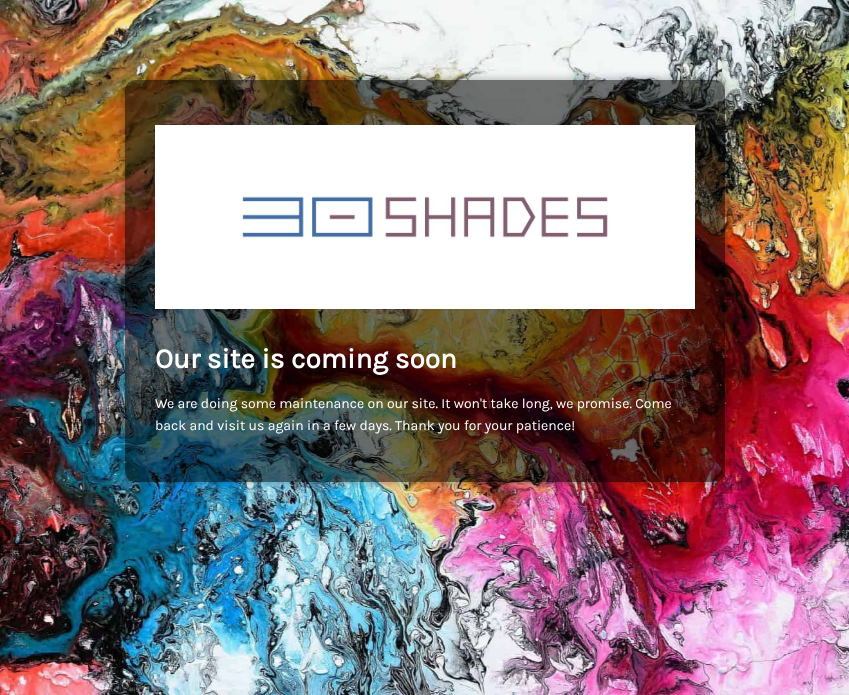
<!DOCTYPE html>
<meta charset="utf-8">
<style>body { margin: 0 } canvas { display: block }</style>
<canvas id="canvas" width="849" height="695"></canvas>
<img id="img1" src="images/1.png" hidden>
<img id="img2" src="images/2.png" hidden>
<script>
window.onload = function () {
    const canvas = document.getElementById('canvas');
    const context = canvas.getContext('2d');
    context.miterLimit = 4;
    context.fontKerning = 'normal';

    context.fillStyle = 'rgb(255, 255, 255)';
    context.fillRect(0, 0, 849, 695);
    context.drawImage(document.getElementById('img1'), 0, 0, 849, 695);
    context.save();
    context.beginPath();
    context.moveTo(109, 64);
    context.lineTo(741, 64);
    context.lineTo(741, 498);
    context.lineTo(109, 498);
    context.closePath();
    context.moveTo(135, 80);
    context.lineTo(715, 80);
    context.bezierCurveTo(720.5, 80, 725, 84.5, 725, 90);
    context.lineTo(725, 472);
    context.bezierCurveTo(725, 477.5, 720.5, 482, 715, 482);
    context.lineTo(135, 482);
    context.bezierCurveTo(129.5, 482, 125, 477.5, 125, 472);
    context.lineTo(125, 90);
    context.bezierCurveTo(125, 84.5, 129.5, 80, 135, 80);
    context.closePath();
    context.clip('evenodd');
    context.fillStyle = 'rgba(0, 0, 0, 0.33)';
    context.filter = 'blur(5px)';
    context.beginPath();
    context.roundRect(125, 80, 600, 402, 10);
    context.fill();
    context.filter = 'none';
    context.restore();
    context.fillStyle = 'rgba(0, 0, 0, 0.55)';
    context.beginPath();
    context.roundRect(125, 80, 600, 402, 10);
    context.fill();
    context.drawImage(document.getElementById('img2'), 155, 125, 540, 184);
    context.font = 'bold 28px Karla';
    context.fillStyle = 'rgb(255, 255, 255)';
    context.fillText('Our site is coming soon', 155, 368);
    context.font = '14px Karla';
    context.fillText('We are doing some maintenance on our site. It won\'t take long, we promise. Come', 155, 408);
    context.fillText('back and visit us again in a few days. Thank you for your patience!', 155, 430);
};
</script>
